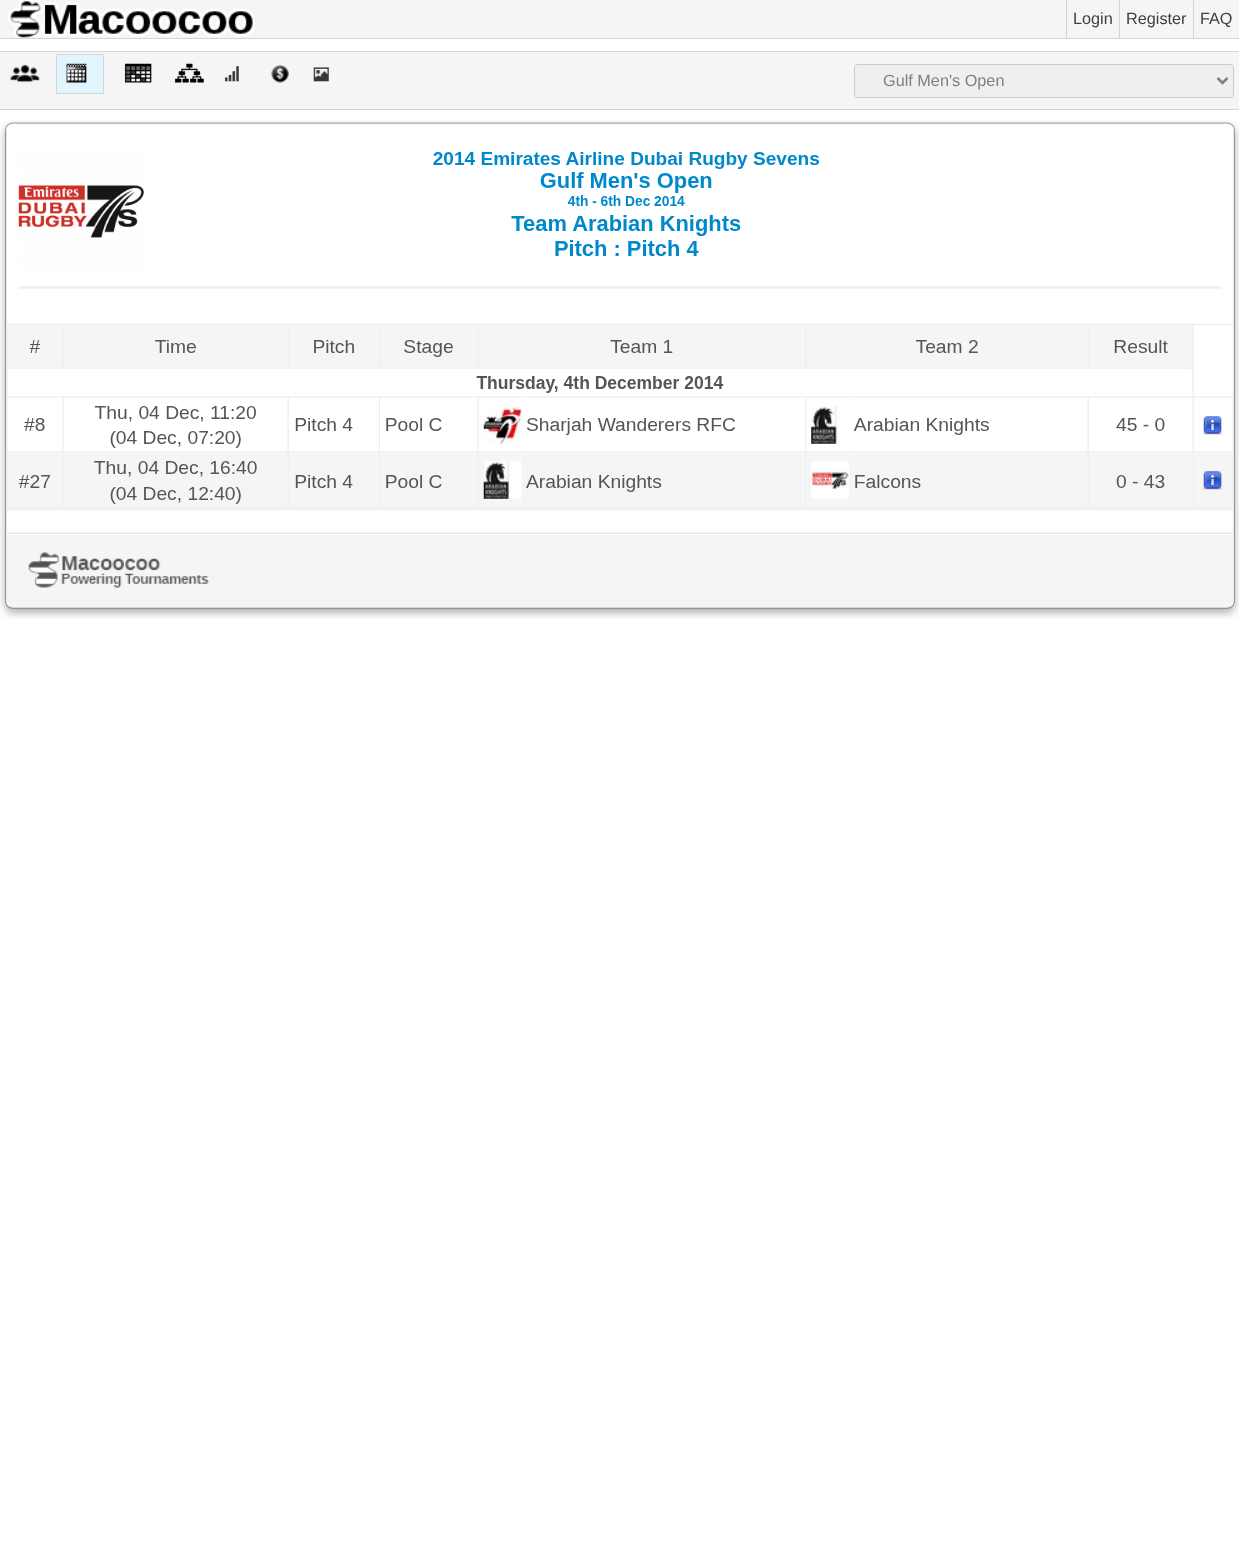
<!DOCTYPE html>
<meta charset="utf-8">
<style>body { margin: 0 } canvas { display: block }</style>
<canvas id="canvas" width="1239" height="1561"></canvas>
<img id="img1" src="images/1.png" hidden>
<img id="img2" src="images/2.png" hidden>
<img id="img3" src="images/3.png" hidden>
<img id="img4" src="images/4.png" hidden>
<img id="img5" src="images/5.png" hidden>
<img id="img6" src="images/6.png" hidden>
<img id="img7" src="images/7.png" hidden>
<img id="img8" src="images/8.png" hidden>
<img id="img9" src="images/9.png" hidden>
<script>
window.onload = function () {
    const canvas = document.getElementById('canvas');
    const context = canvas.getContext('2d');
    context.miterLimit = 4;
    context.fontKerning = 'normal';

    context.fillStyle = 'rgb(255, 255, 255)';
    context.fillRect(0, 0, 1239, 1561);
    context.fillStyle = 'rgb(245, 245, 245)';
    context.fillRect(0, 0, 1239, 38);
    context.fillStyle = 'rgb(213, 213, 213)';
    context.fillRect(0, 38, 1239, 1);
    context.drawImage(document.getElementById('img1'), 7, 0, 248, 38);
    context.fillRect(1119, 0, 1, 38);
    context.fillRect(1066, 0, 1, 38);
    context.fillRect(1193, 0, 1, 38);
    context.fillStyle = 'rgb(245, 245, 245)';
    context.fillRect(0, 52, 1239, 57);
    context.fillStyle = 'rgb(213, 213, 213)';
    context.fillRect(0, 51, 1239, 1);
    context.fillRect(0, 109, 1239, 1);
    context.drawImage(document.getElementById('img2'), 10, 64, 31, 19);
    context.fillStyle = 'rgb(225, 245, 254)';
    context.beginPath();
    context.rect(56.5, 54.5, 47, 39);
    context.fill();
    context.strokeStyle = 'rgb(213, 213, 213)';
    context.stroke();
    context.drawImage(document.getElementById('img3'), 66, 63, 21, 20);
    context.drawImage(document.getElementById('img4'), 124, 63, 28, 20);
    context.drawImage(document.getElementById('img5'), 174, 63, 30, 20);
    context.drawImage(document.getElementById('img6'), 224, 66, 15, 16);
    context.drawImage(document.getElementById('img7'), 271, 64, 18, 19);
    context.drawImage(document.getElementById('img8'), 313, 67, 16, 15);
    context.fillStyle = 'rgb(239, 239, 239)';
    context.beginPath();
    context.roundRect(854.5, 64.5, 379, 33, 3.5);
    context.fill();
    context.strokeStyle = 'rgb(204, 204, 204)';
    context.stroke();
    context.beginPath();
    context.moveTo(1217.5, 78);
    context.lineTo(1222.5, 83);
    context.lineTo(1227.5, 78);
    context.strokeStyle = 'rgb(128, 128, 128)';
    context.lineWidth = 2.5;
    context.stroke();
    context.drawImage(document.getElementById('img9'), 0, 120, 1239, 499);
    context.font = '16.25px Liberation Sans';
    context.fillStyle = 'rgb(64, 64, 64)';
    context.fillText('Login', 1073, 24);
    context.fillText('Register', 1126, 24);
    context.fillText('FAQ', 1200, 24);
    context.fillStyle = 'rgb(128, 128, 128)';
    context.fillText('Gulf Men\'s Open', 883, 86);
};
</script>
